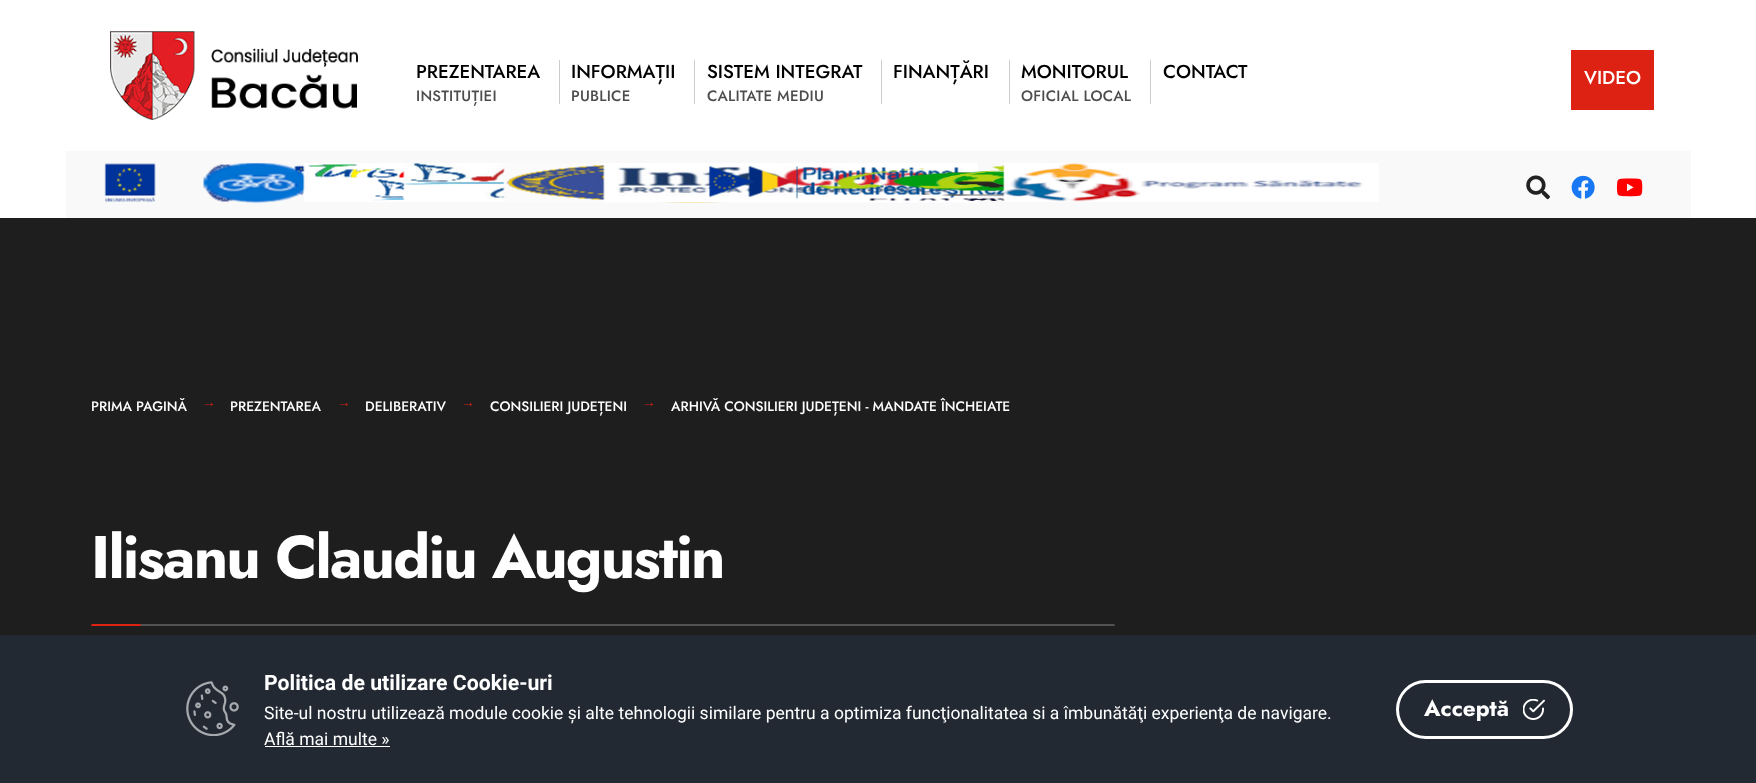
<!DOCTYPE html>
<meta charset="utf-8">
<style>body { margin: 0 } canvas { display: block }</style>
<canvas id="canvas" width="1756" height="783"></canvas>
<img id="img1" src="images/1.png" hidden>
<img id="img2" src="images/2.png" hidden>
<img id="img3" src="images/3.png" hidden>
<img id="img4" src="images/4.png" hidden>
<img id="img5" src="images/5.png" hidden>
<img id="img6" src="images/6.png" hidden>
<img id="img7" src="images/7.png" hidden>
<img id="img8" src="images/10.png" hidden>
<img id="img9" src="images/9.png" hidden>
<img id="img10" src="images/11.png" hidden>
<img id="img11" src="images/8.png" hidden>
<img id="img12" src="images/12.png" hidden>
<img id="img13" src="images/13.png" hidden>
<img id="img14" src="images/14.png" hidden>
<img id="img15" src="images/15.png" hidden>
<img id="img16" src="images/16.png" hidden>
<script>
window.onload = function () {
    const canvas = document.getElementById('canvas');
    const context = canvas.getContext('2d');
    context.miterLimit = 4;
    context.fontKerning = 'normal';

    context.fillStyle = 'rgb(255, 255, 255)';
    context.fillRect(0, 0, 1756, 783);
    context.drawImage(document.getElementById('img1'), 110, 31, 248, 89);
    context.fillStyle = 'rgb(204, 204, 204)';
    context.fillRect(559, 60, 1, 44);
    context.fillRect(694, 60, 1, 44);
    context.fillRect(881, 60, 1, 44);
    context.fillRect(1009, 60, 1, 44);
    context.fillRect(1150, 60, 1, 44);
    context.fillStyle = 'rgb(221, 33, 19)';
    context.fillRect(1571, 50, 83, 60);
    context.fillStyle = 'rgb(249, 249, 249)';
    context.fillRect(66, 151, 1625, 67);
    context.drawImage(document.getElementById('img2'), 104, 163, 201, 39);
    context.drawImage(document.getElementById('img3'), 203, 163, 102, 40);
    context.drawImage(document.getElementById('img4'), 303, 163, 102, 39);
    context.drawImage(document.getElementById('img5'), 403, 163, 102, 39);
    context.drawImage(document.getElementById('img6'), 503, 163, 374, 40);
    context.drawImage(document.getElementById('img7'), 603, 163, 375, 40);
    context.drawImage(document.getElementById('img8'), 709, 166, 296, 33);
    context.drawImage(document.getElementById('img9'), 817, 165, 188, 36);
    context.drawImage(document.getElementById('img10'), 917, 170, 88, 31);
    context.drawImage(document.getElementById('img11'), 1003, 163, 376, 39);
    context.drawImage(document.getElementById('img12'), 1526, 175, 24, 25);
    context.drawImage(document.getElementById('img13'), 1571, 175, 24, 24);
    context.drawImage(document.getElementById('img14'), 1616, 178, 27, 19);
    context.fillStyle = 'rgb(30, 30, 30)';
    context.fillRect(0, 218, 1756, 417);
    context.save();
    context.beginPath();
    context.rect(91, 523, 1575, 103);
    context.clip();
    context.fillStyle = 'rgb(82, 82, 82)';
    context.beginPath();
    context.roundRect(139, 624, 976, 3, 1.5);
    context.fill();
    context.fillStyle = 'rgb(221, 33, 19)';
    context.beginPath();
    context.roundRect(91, 624, 50, 3, 1.5);
    context.fill();
    context.restore();
    context.fillStyle = 'rgb(34, 41, 51)';
    context.fillRect(0, 635, 1756, 148);
    context.drawImage(document.getElementById('img15'), 186, 681, 53, 55);
    context.fillStyle = 'rgb(255, 255, 255)';
    context.fillRect(265, 746, 125, 1);
    context.beginPath();
    context.roundRect(1397.5, 681.5, 174, 56, 28);
    context.strokeStyle = 'rgb(255, 255, 255)';
    context.lineWidth = 3;
    context.stroke();
    context.drawImage(document.getElementById('img16'), 1523, 699, 22, 21);
    context.font = '500 18.75px Jost';
    context.fillStyle = 'rgb(0, 0, 0)';
    context.fillText('PREZENTAREA', 416, 78);
    context.letterSpacing = '0.25px';
    context.font = '500 15px Jost';
    context.fillStyle = 'rgb(77, 77, 77)';
    context.fillText('INSTITUȚIEI', 416, 101);
    context.letterSpacing = '0px';
    context.font = '500 18.75px Jost';
    context.fillStyle = 'rgb(0, 0, 0)';
    context.fillText('INFORMAȚII', 571, 78);
    context.letterSpacing = '0.25px';
    context.font = '500 15px Jost';
    context.fillStyle = 'rgb(77, 77, 77)';
    context.fillText('PUBLICE', 571, 101);
    context.letterSpacing = '0px';
    context.font = '500 18.75px Jost';
    context.fillStyle = 'rgb(0, 0, 0)';
    context.fillText('SISTEM INTEGRAT', 707, 78);
    context.letterSpacing = '0.25px';
    context.font = '500 15px Jost';
    context.fillStyle = 'rgb(77, 77, 77)';
    context.fillText('CALITATE MEDIU', 707, 101);
    context.letterSpacing = '0px';
    context.font = '500 18.75px Jost';
    context.fillStyle = 'rgb(0, 0, 0)';
    context.fillText('FINANȚĂRI', 893, 78);
    context.fillText('MONITORUL', 1021, 78);
    context.letterSpacing = '0.25px';
    context.font = '500 15px Jost';
    context.fillStyle = 'rgb(77, 77, 77)';
    context.fillText('OFICIAL LOCAL', 1021, 101);
    context.letterSpacing = '0px';
    context.font = '500 18.75px Jost';
    context.fillStyle = 'rgb(0, 0, 0)';
    context.fillText('CONTACT', 1163, 78);
    context.fillStyle = 'rgb(255, 255, 255)';
    context.fillText('VIDEO', 1584, 84);
    context.font = '500 13.75px Jost';
    context.fillText('PRIMA PAGINĂ', 91, 411);
    context.font = '13.75px Liberation Serif';
    context.fillStyle = 'rgb(221, 33, 19)';
    context.fillText('→', 202, 407);
    context.font = '500 13.75px Jost';
    context.fillStyle = 'rgb(255, 255, 255)';
    context.fillText('PREZENTAREA', 230, 411);
    context.font = '13.75px Liberation Serif';
    context.fillStyle = 'rgb(221, 33, 19)';
    context.fillText('→', 337, 407);
    context.font = '500 13.75px Jost';
    context.fillStyle = 'rgb(255, 255, 255)';
    context.fillText('DELIBERATIV', 365, 411);
    context.font = '13.75px Liberation Serif';
    context.fillStyle = 'rgb(221, 33, 19)';
    context.fillText('→', 461, 407);
    context.font = '500 13.75px Jost';
    context.fillStyle = 'rgb(255, 255, 255)';
    context.fillText('CONSILIERI JUDEȚENI', 490, 411);
    context.font = '13.75px Liberation Serif';
    context.fillStyle = 'rgb(221, 33, 19)';
    context.fillText('→', 642, 407);
    context.font = '500 13.75px Jost';
    context.fillStyle = 'rgb(255, 255, 255)';
    context.fillText('ARHIVĂ CONSILIERI JUDEȚENI - MANDATE ÎNCHEIATE', 671, 411);
    context.letterSpacing = '-1.8px';
    context.font = 'bold 60px Jost';
    context.fillText('Ilisanu Claudiu Augustin', 91, 578);
    context.letterSpacing = '0px';
    context.font = 'bold 21.25px Roboto';
    context.fillText('Politica de utilizare Cookie-uri', 264, 690);
    context.font = '17.5px Roboto';
    context.fillText('Site-ul nostru utilizează module cookie și alte tehnologii similare pentru a optimiza funcţionalitatea si a îmbunătăţi experienţa de navigare.', 264, 719);
    context.fillText('Află mai multe »', 264, 745);
    context.font = 'bold 22.5px Jost';
    context.fillText('Acceptă', 1424, 716);
};
</script>
